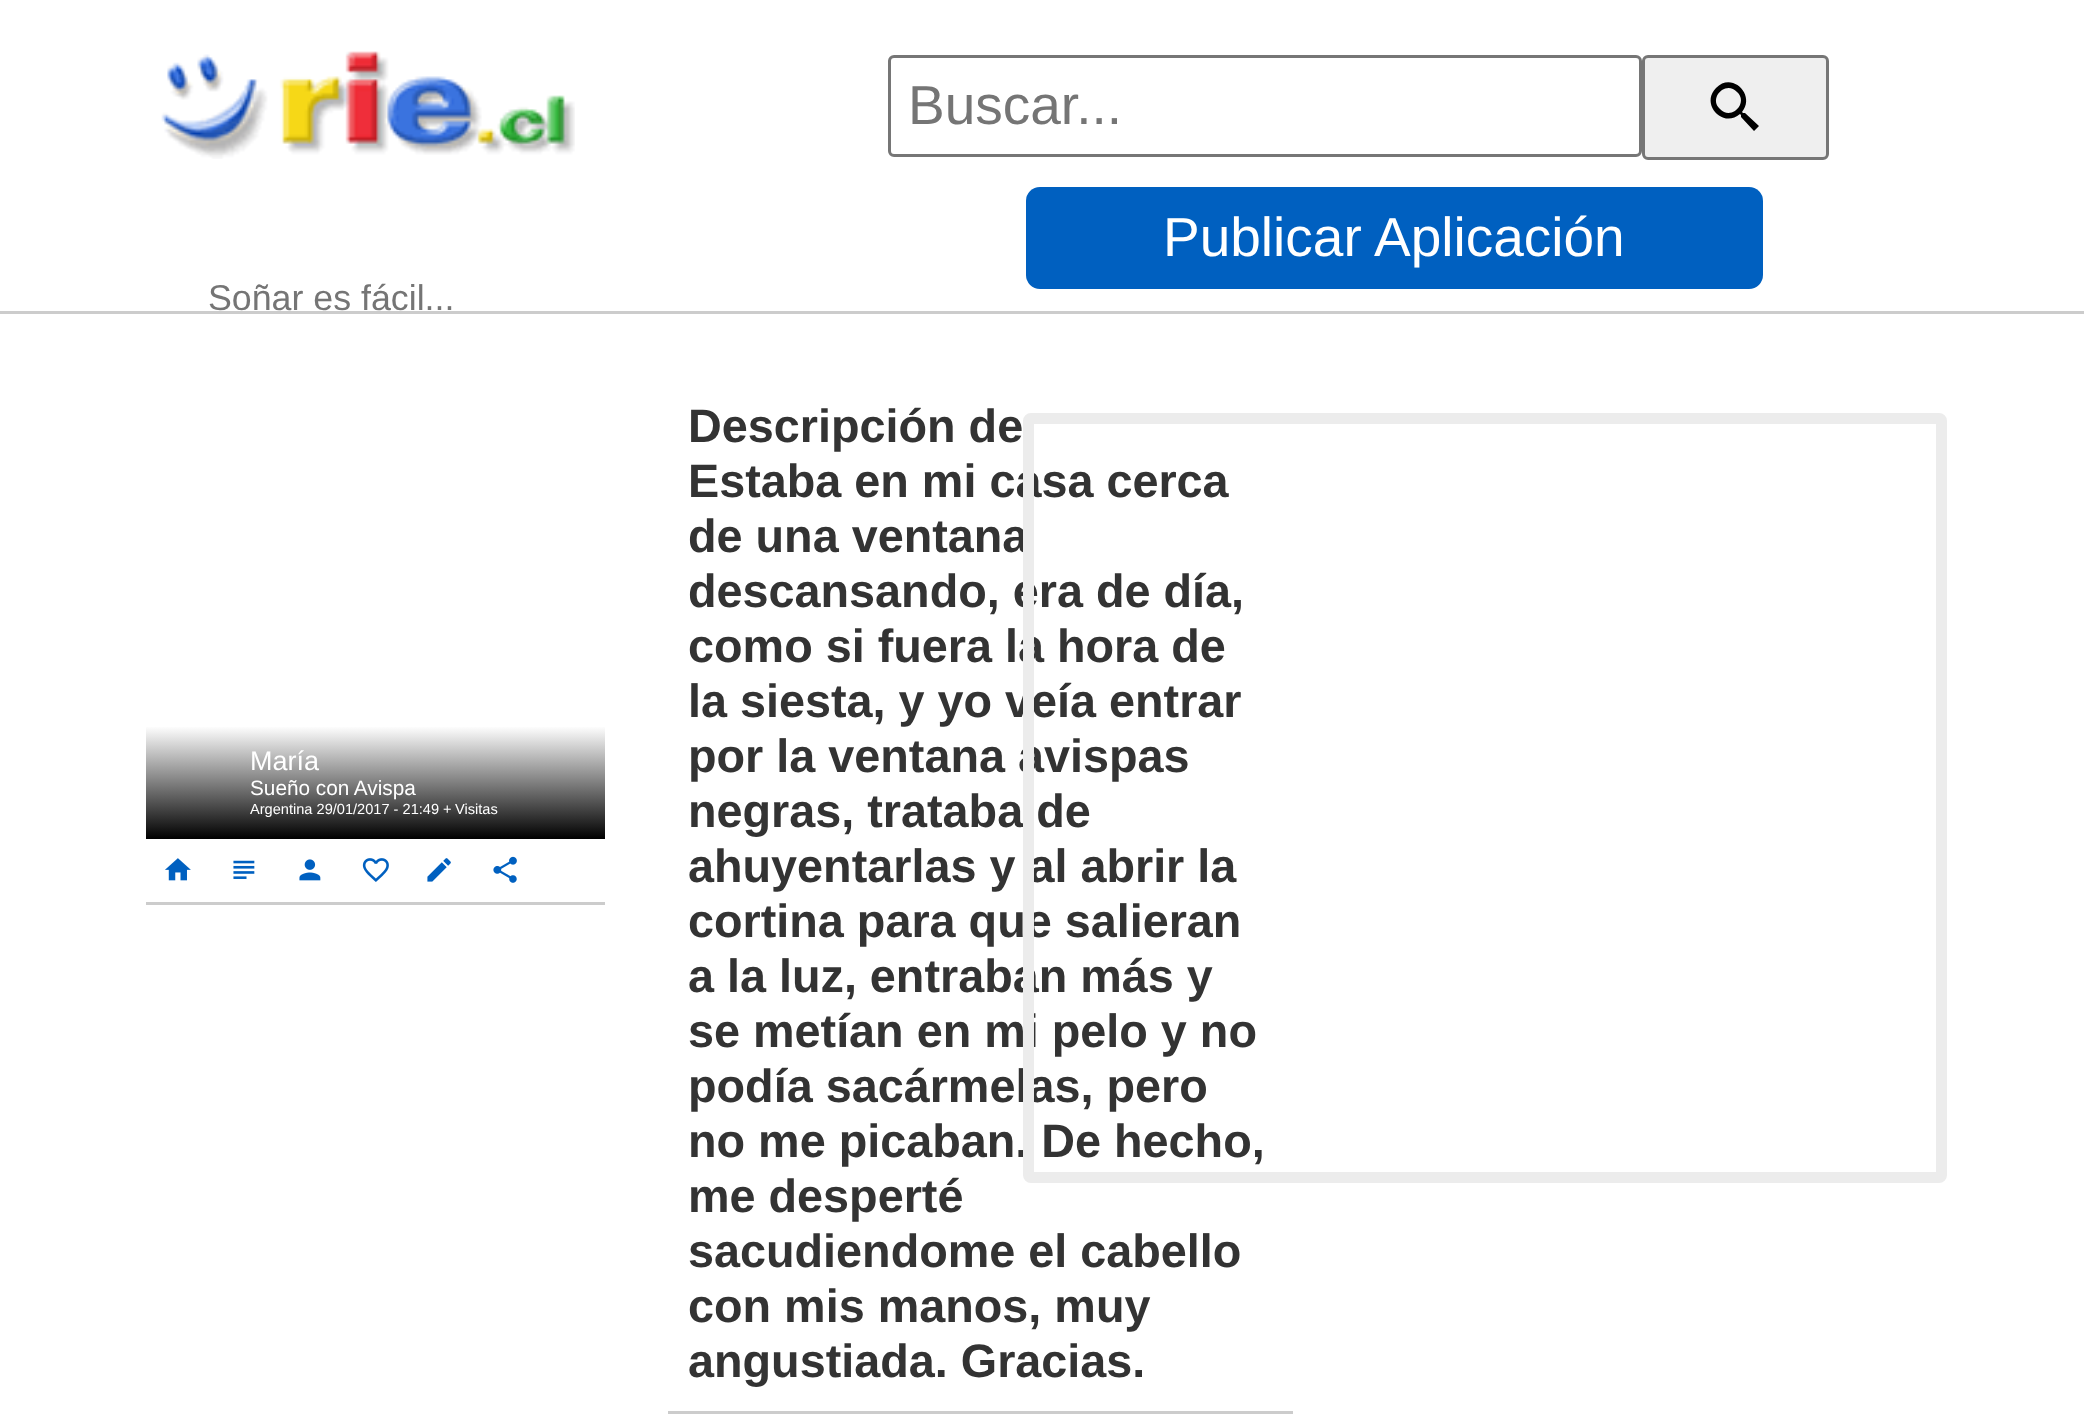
<!DOCTYPE html>
<meta charset="utf-8">
<style>body { margin: 0 } canvas { display: block }</style>
<canvas id="canvas" width="2084" height="1417"></canvas>
<img id="img1" src="images/1.png" hidden>
<img id="img2" src="images/2.png" hidden>
<img id="img3" src="images/3.png" hidden>
<img id="img4" src="images/4.png" hidden>
<img id="img5" src="images/5.png" hidden>
<img id="img6" src="images/6.png" hidden>
<img id="img7" src="images/7.png" hidden>
<script>
window.onload = function () {
    const canvas = document.getElementById('canvas');
    const context = canvas.getContext('2d');
    context.miterLimit = 4;
    context.fontKerning = 'normal';
    let gradient;

    context.fillStyle = 'rgb(255, 255, 255)';
    context.fillRect(0, 0, 2084, 1417);
    context.fillStyle = 'rgb(204, 204, 204)';
    context.fillRect(0, 311, 2084, 3);
    context.drawImage(document.getElementById('img1'), 161, 51, 414, 108);
    context.beginPath();
    context.roundRect(889.5, 56.5, 751, 99, 4.5);
    context.strokeStyle = 'rgb(118, 118, 118)';
    context.lineWidth = 3;
    context.stroke();
    context.fillStyle = 'rgb(239, 239, 239)';
    context.beginPath();
    context.roundRect(1643.5, 56.5, 184, 102, 4.5);
    context.fill();
    context.stroke();
    context.fillStyle = 'rgb(0, 0, 0)';
    context.beginPath();
    context.moveTo(1720, 109);
    context.bezierCurveTo(1731, 121, 1749, 103, 1737, 92);
    context.bezierCurveTo(1726, 80, 1708, 98, 1720, 109);
    context.closePath();
    context.moveTo(1745, 113);
    context.lineTo(1759, 126);
    context.lineTo(1754, 131);
    context.lineTo(1741, 117);
    context.lineTo(1741, 115);
    context.lineTo(1740, 114);
    context.bezierCurveTo(1723, 129, 1700, 104, 1716, 88);
    context.bezierCurveTo(1732, 71, 1756, 95, 1742, 112);
    context.lineTo(1743, 113);
    context.closePath();
    context.fill();
    context.fillStyle = 'rgb(0, 96, 192)';
    context.beginPath();
    context.roundRect(1026, 187, 737, 102, 14);
    context.fill();
    gradient = context.createLinearGradient(375, 839, 375, 726);
    gradient.addColorStop(0, 'rgb(0, 0, 0)');
    gradient.addColorStop(1, 'rgb(255, 255, 255)');
    context.fillStyle = gradient;
    context.fillRect(146, 727, 459, 112);
    context.fillStyle = 'rgb(204, 204, 204)';
    context.fillRect(146, 902, 459, 3);
    context.drawImage(document.getElementById('img2'), 165, 858, 26, 23);
    context.drawImage(document.getElementById('img3'), 233, 860, 22, 19);
    context.drawImage(document.getElementById('img4'), 299, 859, 22, 22);
    context.drawImage(document.getElementById('img5'), 362, 858, 27, 24);
    context.drawImage(document.getElementById('img6'), 427, 858, 24, 24);
    context.drawImage(document.getElementById('img7'), 493, 856, 24, 27);
    context.fillRect(668, 1411, 625, 3);
    context.font = '55px Liberation Sans';
    context.fillStyle = 'rgb(117, 117, 117)';
    context.fillText('Buscar...', 908, 124);
    context.fillStyle = 'rgb(255, 255, 255)';
    context.fillText('Publicar Aplicación', 1163, 256);
    context.font = '35.75px Liberation Sans';
    context.fillStyle = 'rgb(117, 117, 117)';
    context.fillText('Soñar es fácil...', 208, 310);
    context.font = '27px Liberation Sans';
    context.fillStyle = 'rgb(255, 255, 255)';
    context.fillText('María', 250, 770);
    context.font = '20.75px Liberation Sans';
    context.fillText('Sueño con Avispa', 250, 795);
    context.font = '14.6px Liberation Sans';
    context.fillText('Argentina 29/01/2017 - 21:49 +', 250, 814);
    context.fillText('Visitas', 455, 814);
    context.font = 'bold 46.75px Liberation Sans';
    context.fillStyle = 'rgb(51, 51, 51)';
    context.fillText('Descripción de', 688, 442);
    context.fillText('Estaba en mi casa cerca', 688, 497);
    context.fillText('de una ventana', 688, 552);
    context.fillText('descansando, era de día,', 688, 607);
    context.fillText('como si fuera la hora de', 688, 662);
    context.fillText('la siesta, y yo veía entrar', 688, 717);
    context.fillText('por la ventana avispas', 688, 772);
    context.fillText('negras, trataba de', 688, 827);
    context.fillText('ahuyentarlas y al abrir la', 688, 882);
    context.fillText('cortina para que salieran', 688, 937);
    context.fillText('a la luz, entraban más y', 688, 992);
    context.fillText('se metían en mi pelo y no', 688, 1047);
    context.fillText('podía sacármelas, pero', 688, 1102);
    context.fillText('no me picaban. De hecho,', 688, 1157);
    context.fillText('me desperté', 688, 1212);
    context.fillText('sacudiendome el cabello', 688, 1267);
    context.fillText('con mis manos, muy', 688, 1322);
    context.fillText('angustiada. Gracias.', 688, 1377);
    context.beginPath();
    context.roundRect(1028.5, 418.5, 913, 759, 2.5);
    context.strokeStyle = 'rgb(236, 236, 236)';
    context.lineWidth = 11;
    context.stroke();
};
</script>
